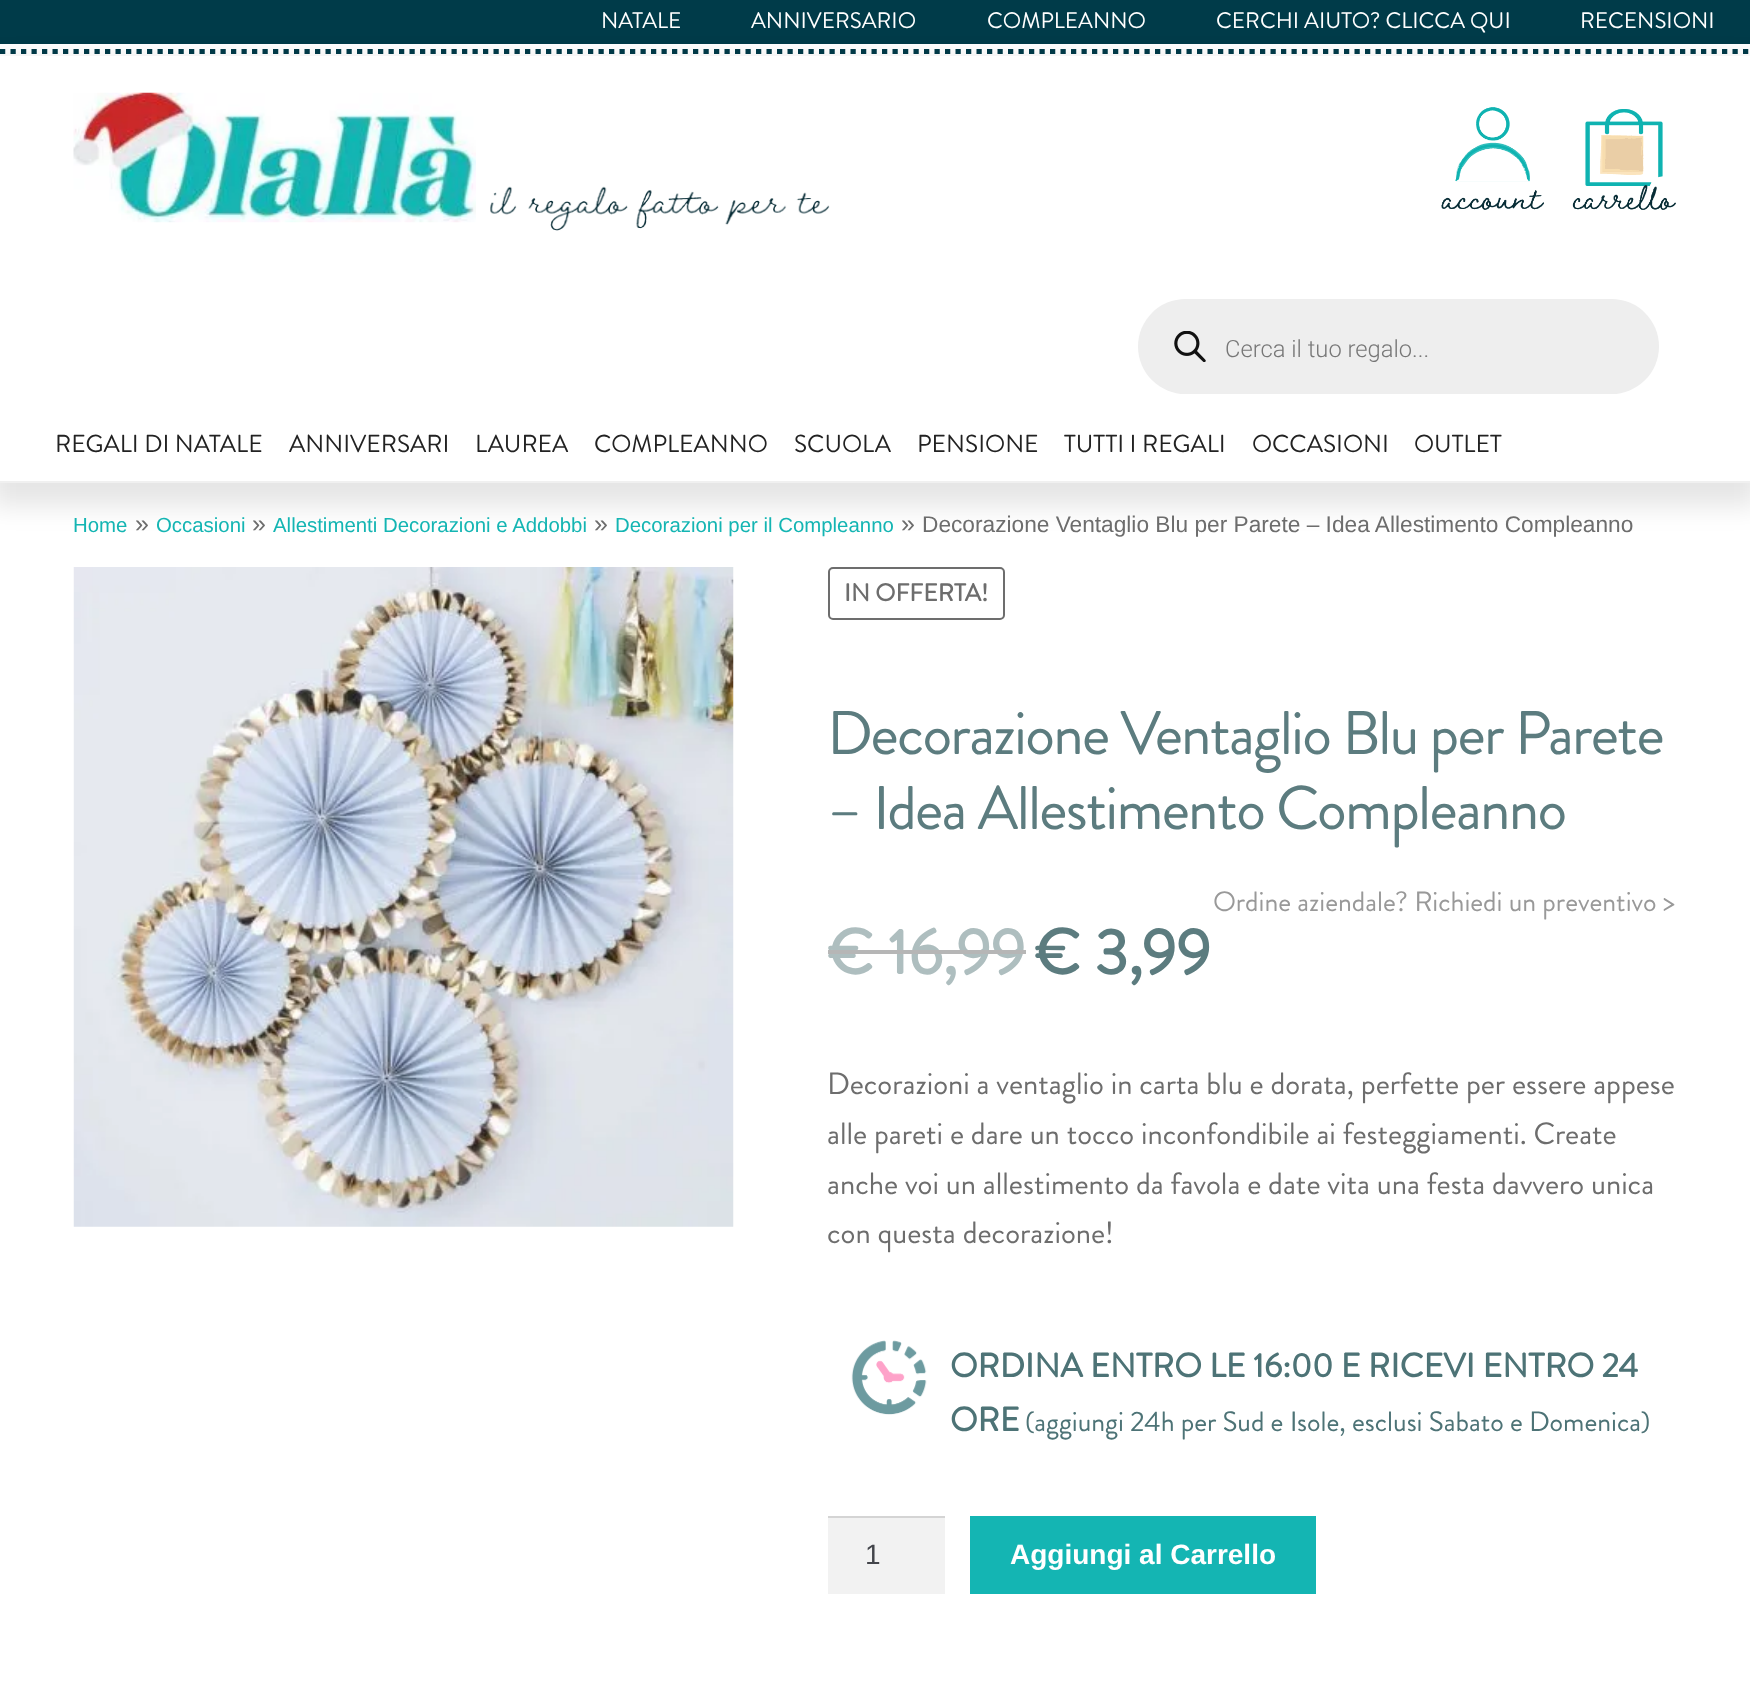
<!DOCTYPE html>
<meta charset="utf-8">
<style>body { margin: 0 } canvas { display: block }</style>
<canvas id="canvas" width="1750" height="1688"></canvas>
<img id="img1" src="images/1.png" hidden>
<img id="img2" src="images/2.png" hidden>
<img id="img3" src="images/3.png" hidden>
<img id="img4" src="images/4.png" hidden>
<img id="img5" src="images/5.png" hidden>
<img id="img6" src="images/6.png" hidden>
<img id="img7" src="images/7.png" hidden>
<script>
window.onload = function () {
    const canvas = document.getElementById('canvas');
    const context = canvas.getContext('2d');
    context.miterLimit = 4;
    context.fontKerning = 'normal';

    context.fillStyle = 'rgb(255, 255, 255)';
    context.fillRect(0, 0, 1750, 1688);
    context.fillStyle = 'rgb(0, 59, 73)';
    context.fillRect(0, 0, 1750, 44);
    context.beginPath();
    context.moveTo(0, 51.5);
    context.lineTo(1750, 51.5);
    context.strokeStyle = 'rgb(0, 59, 73)';
    context.lineWidth = 5.2;
    context.setLineDash([5.25, 5.25]);
    context.stroke();
    context.save();
    context.beginPath();
    context.moveTo(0, 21);
    context.lineTo(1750, 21);
    context.lineTo(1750, 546);
    context.lineTo(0, 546);
    context.closePath();
    context.moveTo(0, 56);
    context.lineTo(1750, 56);
    context.lineTo(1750, 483);
    context.lineTo(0, 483);
    context.closePath();
    context.clip('evenodd');
    context.fillStyle = 'rgba(0, 0, 0, 0.1)';
    context.filter = 'blur(13px)';
    context.beginPath();
    context.rect(-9, 61, 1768, 445);
    context.fill();
    context.filter = 'none';
    context.restore();
    context.fillStyle = 'rgb(240, 240, 240)';
    context.fillRect(0, 481, 1750, 2);
    context.drawImage(document.getElementById('img1'), 73, 92, 403, 131);
    context.drawImage(document.getElementById('img2'), 490, 186, 340, 45);
    context.drawImage(document.getElementById('img3'), 1441, 107, 103, 103);
    context.drawImage(document.getElementById('img4'), 1572, 109, 104, 101);
    context.fillStyle = 'rgb(238, 238, 238)';
    context.beginPath();
    context.roundRect(1138, 299, 521, 95, 47.5);
    context.fill();
    context.drawImage(document.getElementById('img5'), 1174, 331, 32, 31);
    context.drawImage(document.getElementById('img6'), 73, 567, 661, 660);
    context.beginPath();
    context.roundRect(829, 568, 175, 51, 4);
    context.strokeStyle = 'rgb(109, 109, 109)';
    context.lineWidth = 2;
    context.setLineDash([]);
    context.stroke();
    context.drawImage(document.getElementById('img7'), 851, 1340, 76, 75);
    context.fillStyle = 'rgb(242, 242, 242)';
    context.fillRect(828, 1518, 117, 76);
    context.fillStyle = 'rgb(212, 212, 212)';
    context.fillRect(828, 1516, 117, 2);
    context.fillStyle = 'rgb(20, 181, 179)';
    context.fillRect(970, 1516, 346, 78);
    context.font = '22.4px Brandon Grotesque';
    context.fillStyle = 'rgb(255, 255, 255)';
    context.fillText('NATALE', 601, 28);
    context.fillText('ANNIVERSARIO', 751, 28);
    context.fillText('COMPLEANNO', 987, 28);
    context.fillText('CERCHI AIUTO? CLICCA QUI', 1216, 28);
    context.fillText('RECENSIONI', 1580, 28);
    context.font = '300 23.75px Roboto';
    context.fillStyle = 'rgb(119, 119, 119)';
    context.fillText('Cerca il tuo regalo...', 1225, 357);
    context.font = '24.5px Brandon Grotesque';
    context.fillStyle = 'rgb(34, 34, 34)';
    context.fillText('REGALI DI NATALE', 55, 452);
    context.fillText('ANNIVERSARI', 289, 452);
    context.fillText('LAUREA', 475, 452);
    context.fillText('COMPLEANNO', 594, 452);
    context.fillText('SCUOLA', 794, 452);
    context.fillText('PENSIONE', 917, 452);
    context.fillText('TUTTI I REGALI', 1064, 452);
    context.fillText('OCCASIONI', 1252, 452);
    context.fillText('OUTLET', 1414, 452);
    context.font = '20.4px Liberation Sans';
    context.fillStyle = 'rgb(20, 181, 179)';
    context.fillText('Home', 73, 532);
    context.font = '25px Liberation Sans';
    context.fillStyle = 'rgb(109, 109, 109)';
    context.fillText('»', 135, 532);
    context.font = '20.4px Liberation Sans';
    context.fillStyle = 'rgb(20, 181, 179)';
    context.fillText('Occasioni', 156, 532);
    context.font = '25px Liberation Sans';
    context.fillStyle = 'rgb(109, 109, 109)';
    context.fillText('»', 252, 532);
    context.font = '20.4px Liberation Sans';
    context.fillStyle = 'rgb(20, 181, 179)';
    context.fillText('Allestimenti Decorazioni e Addobbi', 273, 532);
    context.font = '25px Liberation Sans';
    context.fillStyle = 'rgb(109, 109, 109)';
    context.fillText('»', 594, 532);
    context.font = '20.4px Liberation Sans';
    context.fillStyle = 'rgb(20, 181, 179)';
    context.fillText('Decorazioni per il Compleanno', 615, 532);
    context.font = '25px Liberation Sans';
    context.fillStyle = 'rgb(109, 109, 109)';
    context.fillText('»', 901, 532);
    context.font = '22.7px Liberation Sans';
    context.fillText('Decorazione Ventaglio Blu per Parete – Idea Allestimento Compleanno', 922, 532);
    context.font = 'bold 24.5px Brandon Grotesque';
    context.fillText('IN OFFERTA!', 844, 601);
    context.letterSpacing = '-1.75px';
    context.font = '61.6px Brandon Grotesque';
    context.fillStyle = 'rgb(92, 124, 127)';
    context.fillText('Decorazione Ventaglio Blu per Parete', 827, 754);
    context.fillText('– Idea Allestimento Compleanno', 827, 829);
    context.letterSpacing = '0px';
    context.font = '28px Brandon Grotesque';
    context.fillStyle = 'rgb(153, 153, 153)';
    context.fillText('Ordine aziendale? Richiedi un preventivo >', 1213, 911);
    context.font = 'bold 63.5px Brandon Grotesque';
    context.fillStyle = 'rgb(174, 190, 191)';
    context.fillText('€ 16,99', 827, 974);
    context.fillStyle = 'rgb(182, 182, 182)';
    context.fillRect(828, 950, 198, 4);
    context.fillStyle = 'rgb(92, 124, 127)';
    context.fillText('€ 3,99', 1034, 974);
    context.font = '30.8px Brandon Grotesque';
    context.fillStyle = 'rgb(109, 109, 109)';
    context.fillText('Decorazioni a ventaglio in carta blu e dorata, perfette per essere appese', 827, 1094);
    context.fillText('alle pareti e dare un tocco inconfondibile ai festeggiamenti. Create', 827, 1144);
    context.fillText('anche voi un allestimento da favola e date vita una festa davvero unica', 827, 1194);
    context.fillText('con questa decorazione!', 827, 1243);
    context.font = 'bold 33.6px Brandon Grotesque';
    context.fillStyle = 'rgb(77, 115, 118)';
    context.fillText('ORDINA ENTRO LE 16:00 E RICEVI ENTRO 24', 950, 1377);
    context.fillText('ORE', 950, 1431);
    context.font = '28px Brandon Grotesque';
    context.fillText('(aggiungi 24h per Sud e Isole, esclusi Sabato e Domenica)', 1025, 1431);
    context.font = '28px Liberation Sans';
    context.fillStyle = 'rgb(67, 69, 75)';
    context.fillText('1', 865, 1564);
    context.font = 'bold 28px Liberation Sans';
    context.fillStyle = 'rgb(255, 255, 255)';
    context.fillText('Aggiungi al Carrello', 1010, 1564);
};
</script>
